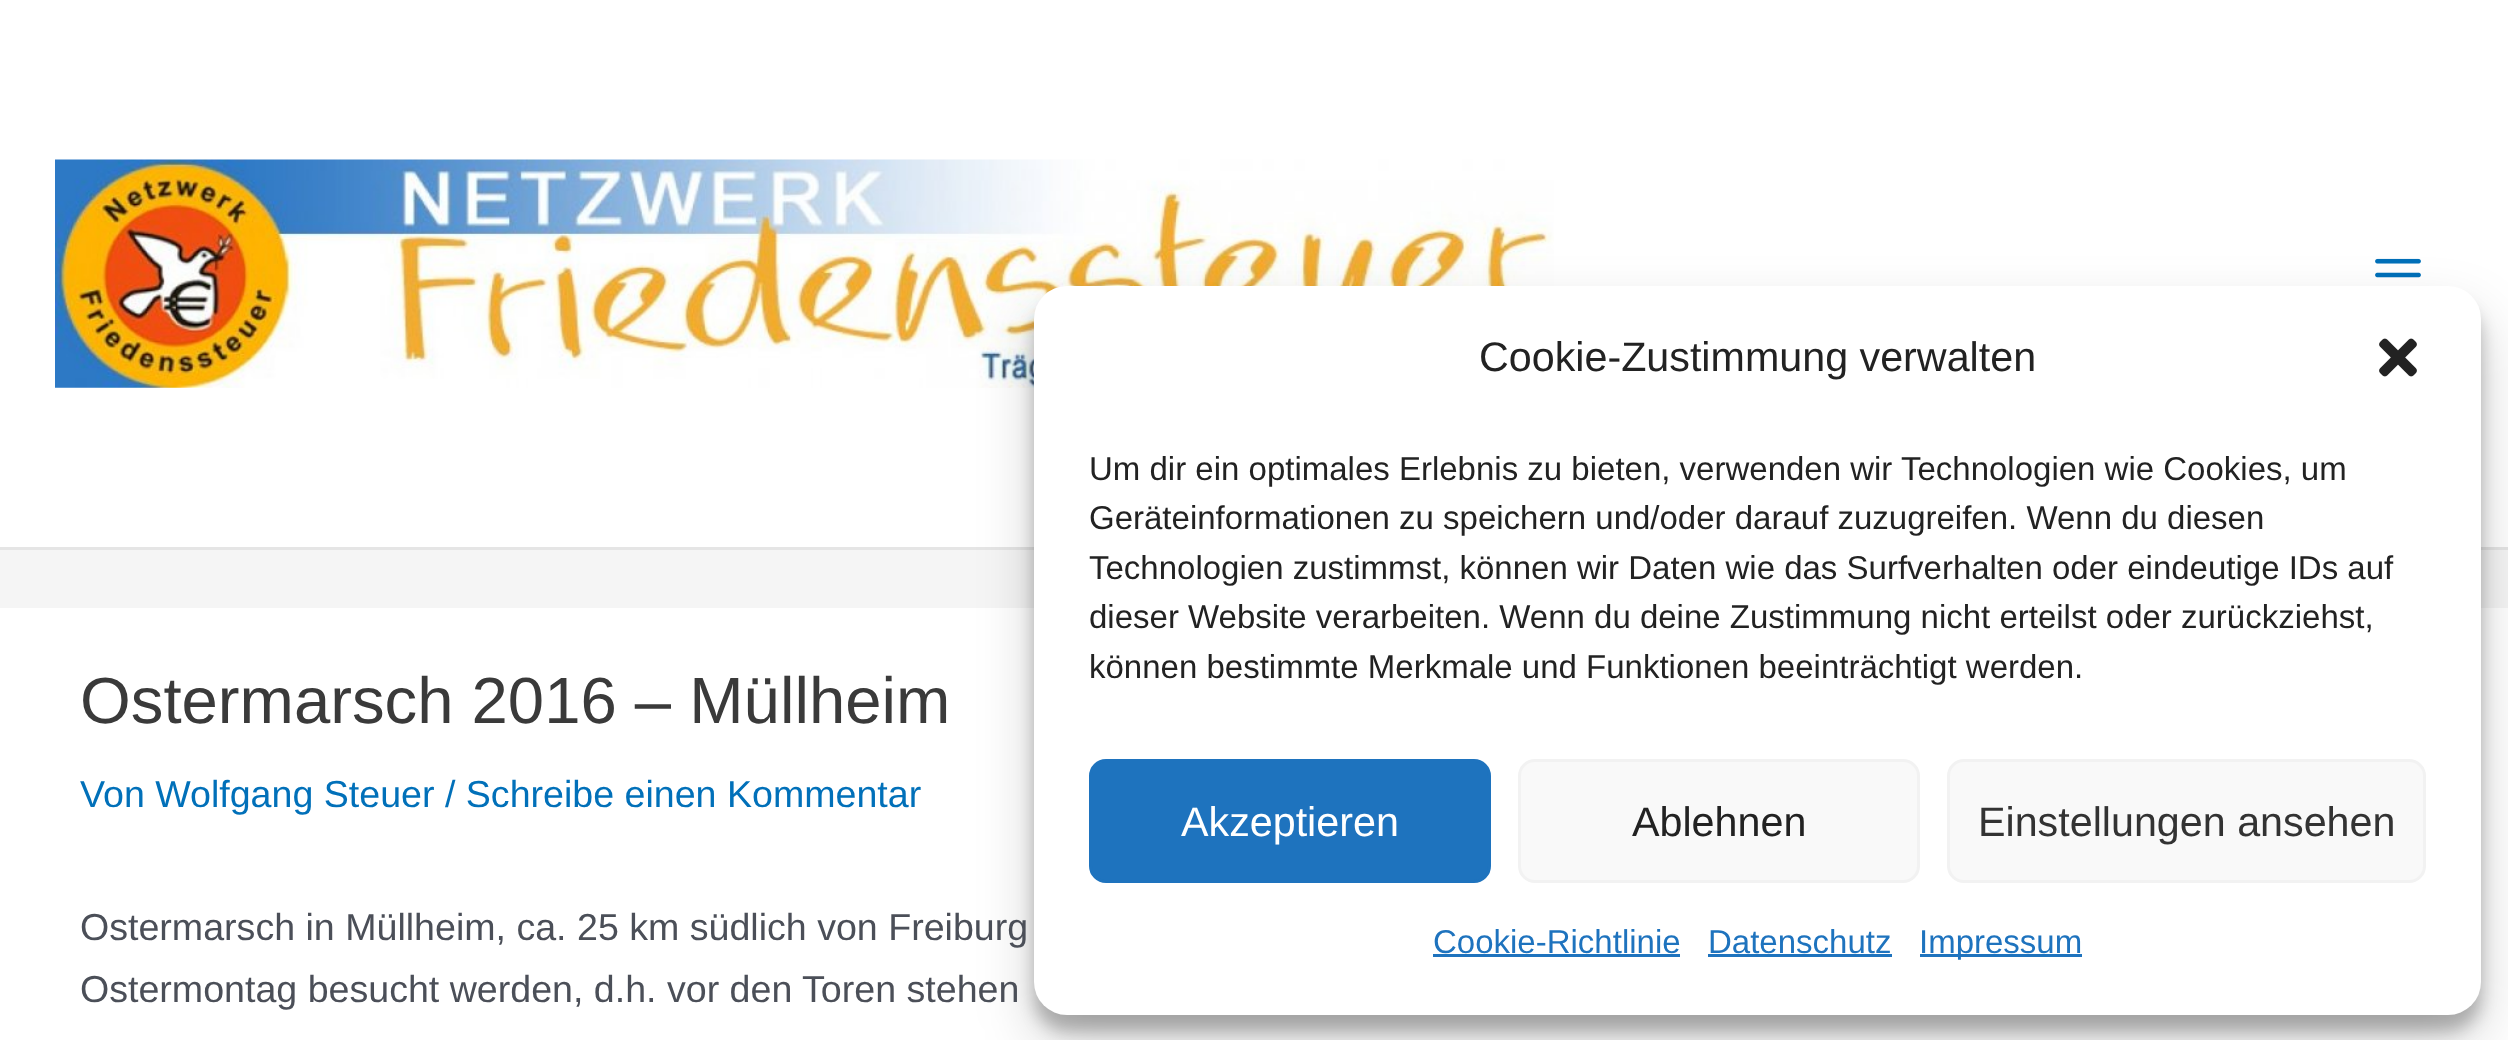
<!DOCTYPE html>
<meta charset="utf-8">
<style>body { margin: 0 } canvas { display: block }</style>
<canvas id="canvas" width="2508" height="1040"></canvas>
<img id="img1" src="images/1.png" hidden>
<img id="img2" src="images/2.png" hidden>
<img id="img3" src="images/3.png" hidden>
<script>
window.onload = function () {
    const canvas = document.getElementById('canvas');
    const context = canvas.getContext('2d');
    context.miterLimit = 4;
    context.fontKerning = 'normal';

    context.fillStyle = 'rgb(245, 245, 245)';
    context.fillRect(0, 0, 2508, 1040);
    context.fillStyle = 'rgb(255, 255, 255)';
    context.fillRect(0, 0, 2508, 547);
    context.fillStyle = 'rgb(229, 229, 229)';
    context.fillRect(0, 547, 2508, 3);
    context.drawImage(document.getElementById('img1'), 55, 159, 1499, 229);
    context.drawImage(document.getElementById('img2'), 2375, 258, 46, 20);
    context.fillStyle = 'rgb(255, 255, 255)';
    context.fillRect(0, 608, 2508, 432);
    context.fillStyle = 'rgba(0, 0, 0, 0.23)';
    context.filter = 'blur(8px)';
    context.beginPath();
    context.roundRect(1034, 303, 1447, 728, 33);
    context.fill();
    context.filter = 'none';
    context.fillStyle = 'rgba(0, 0, 0, 0.19)';
    context.filter = 'blur(27.5px)';
    context.beginPath();
    context.roundRect(1034, 314, 1447, 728, 33);
    context.fill();
    context.filter = 'none';
    context.fillStyle = 'rgb(255, 255, 255)';
    context.beginPath();
    context.roundRect(1034, 286, 1447, 729, 33);
    context.fill();
    context.drawImage(document.getElementById('img3'), 2379, 338, 38, 39);
    context.fillStyle = 'rgb(30, 115, 190)';
    context.beginPath();
    context.roundRect(1090.5, 760.5, 399, 121, 15.5);
    context.fill();
    context.strokeStyle = 'rgb(30, 115, 190)';
    context.lineWidth = 3;
    context.stroke();
    context.fillStyle = 'rgb(249, 249, 249)';
    context.beginPath();
    context.roundRect(1519.5, 760.5, 399, 121, 15.5);
    context.fill();
    context.strokeStyle = 'rgb(242, 242, 242)';
    context.stroke();
    context.beginPath();
    context.roundRect(1948.5, 760.5, 476, 121, 15.5);
    context.fill();
    context.stroke();
    context.fillStyle = 'rgb(30, 115, 190)';
    context.fillRect(1433, 954, 247, 3);
    context.fillRect(1708, 954, 184, 3);
    context.fillRect(1920, 954, 162, 3);
    context.font = '65.25px Liberation Sans';
    context.fillStyle = 'rgb(58, 58, 58)';
    context.fillText('Ostermarsch 2016 – Müllheim', 80, 723);
    context.font = '37.6px Liberation Sans';
    context.fillStyle = 'rgb(1, 112, 185)';
    context.fillText('Von Wolfgang Steuer / Schreibe einen Kommentar', 80, 807);
    context.fillStyle = 'rgb(75, 79, 88)';
    context.fillText('Ostermarsch in Müllheim, ca. 25 km südlich von Freiburg', 80, 940);
    context.fillText('Ostermontag besucht werden, d.h. vor den Toren stehen', 80, 1002);
    context.font = '41.25px Liberation Sans';
    context.fillStyle = 'rgb(34, 34, 34)';
    context.fillText('Cookie-Zustimmung verwalten', 1479, 371);
    context.font = '33px Liberation Sans';
    context.fillText('Um dir ein optimales Erlebnis zu bieten, verwenden wir Technologien wie Cookies, um', 1089, 480);
    context.fillText('Geräteinformationen zu speichern und/oder darauf zuzugreifen. Wenn du diesen', 1089, 529);
    context.fillText('Technologien zustimmst, können wir Daten wie das Surfverhalten oder eindeutige IDs auf', 1089, 579);
    context.fillText('dieser Website verarbeiten. Wenn du deine Zustimmung nicht erteilst oder zurückziehst,', 1089, 628);
    context.fillText('können bestimmte Merkmale und Funktionen beeinträchtigt werden.', 1089, 678);
    context.font = '41.25px Liberation Sans';
    context.fillStyle = 'rgb(255, 255, 255)';
    context.fillText('Akzeptieren', 1181, 836);
    context.fillStyle = 'rgb(34, 34, 34)';
    context.fillText('Ablehnen', 1632, 836);
    context.fillStyle = 'rgb(51, 51, 51)';
    context.fillText('Einstellungen ansehen', 1978, 836);
    context.font = '33px Liberation Sans';
    context.fillStyle = 'rgb(30, 115, 190)';
    context.fillText('Cookie-Richtlinie', 1433, 953);
    context.fillText('Datenschutz', 1708, 953);
    context.fillText('Impressum', 1919, 953);
};
</script>
